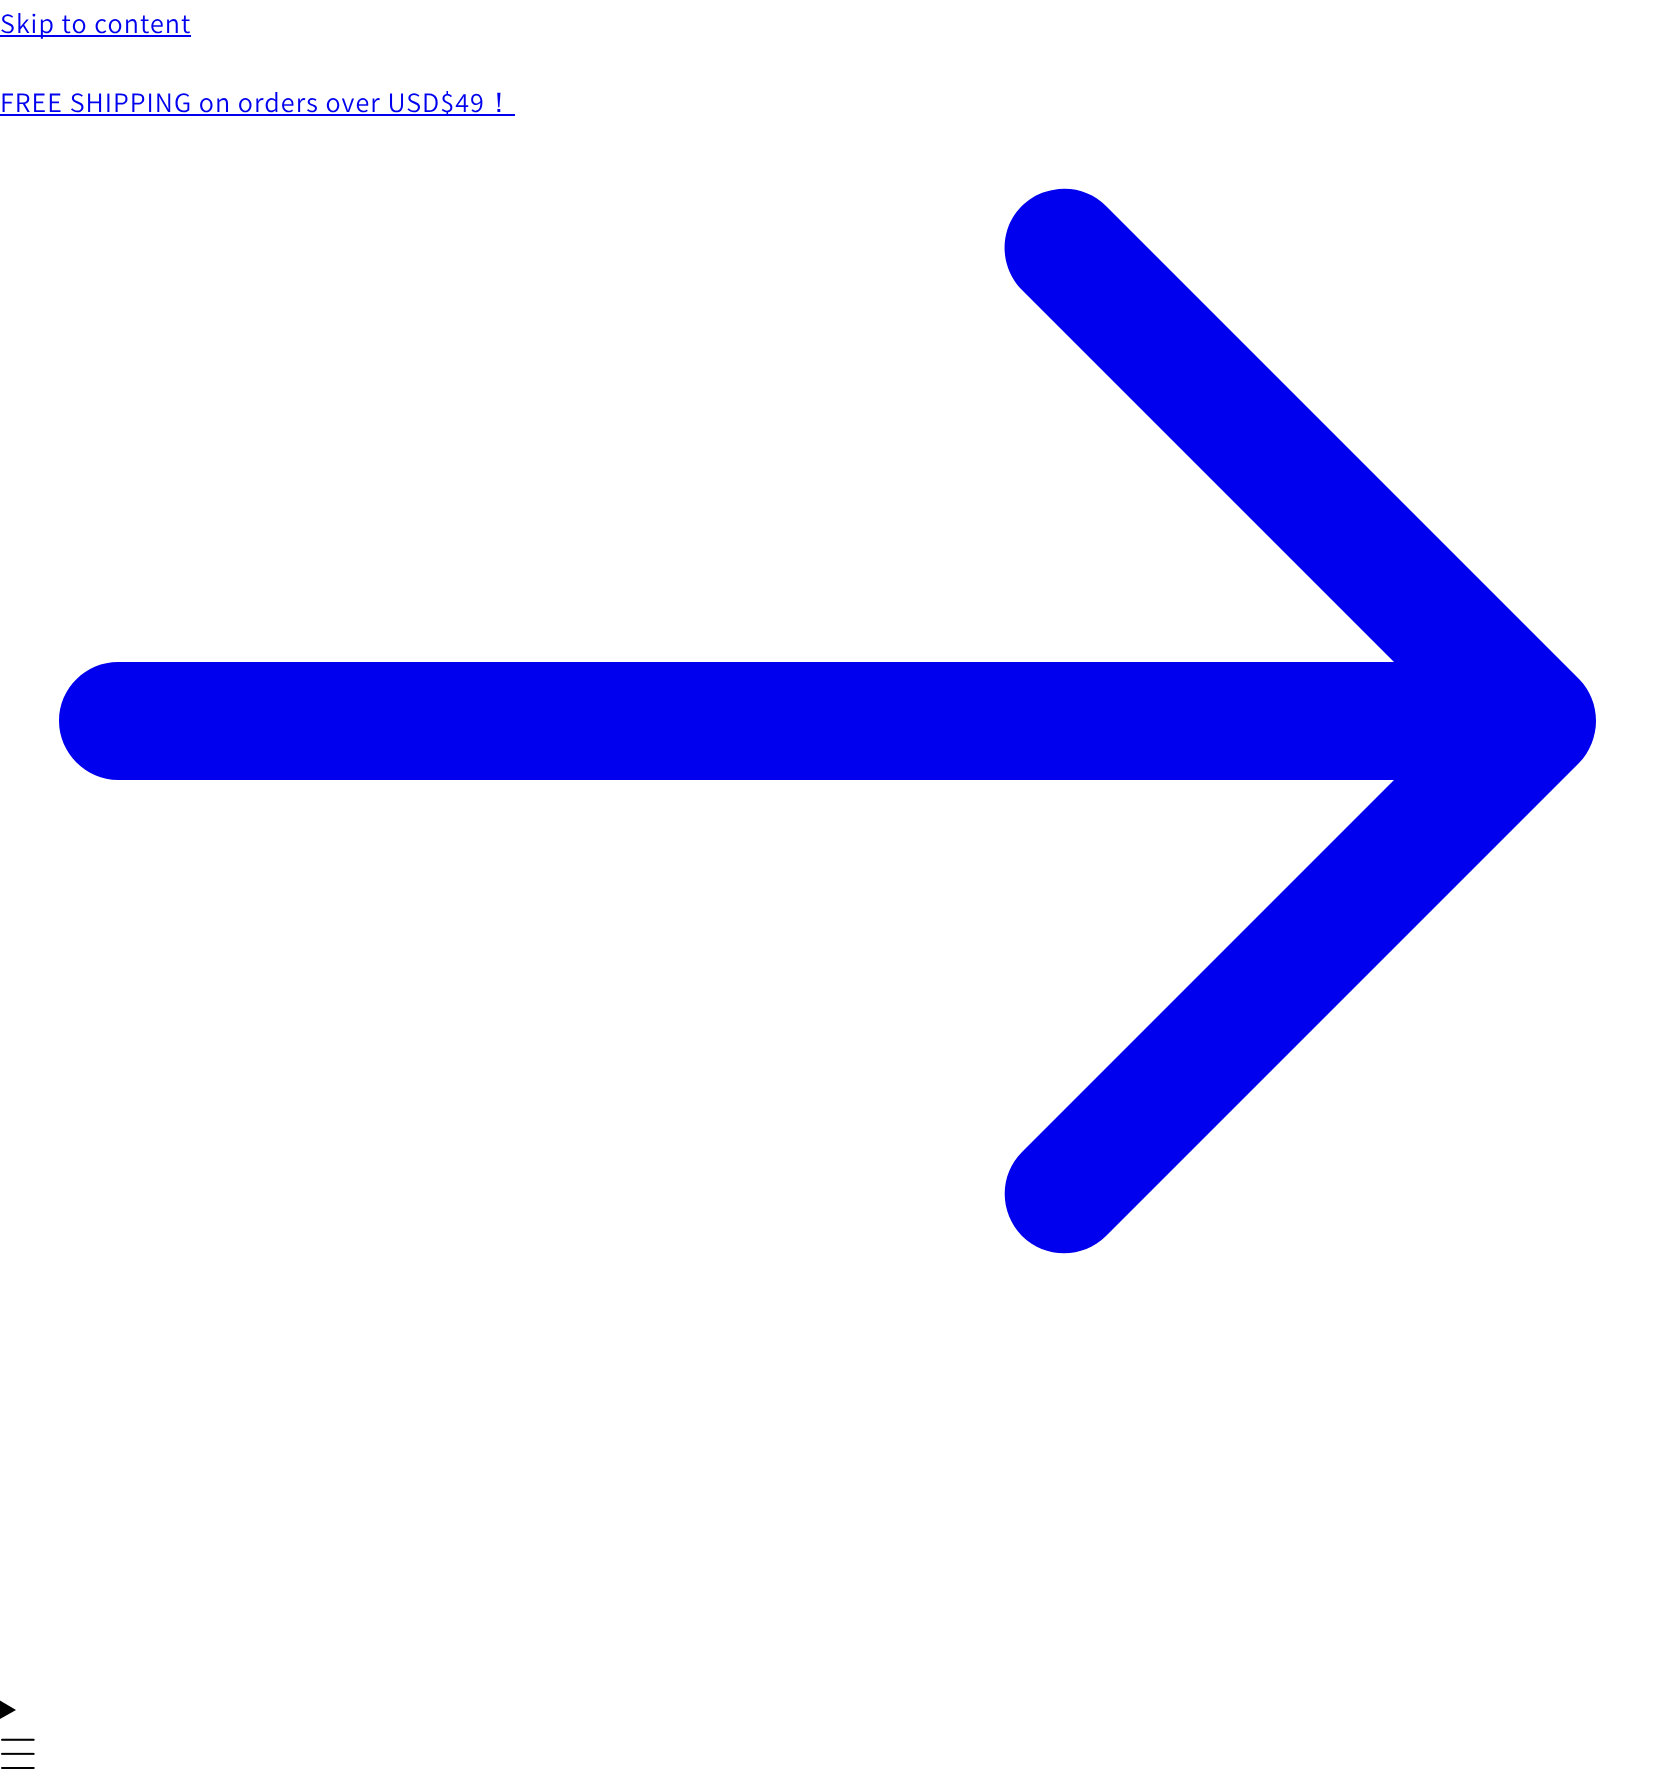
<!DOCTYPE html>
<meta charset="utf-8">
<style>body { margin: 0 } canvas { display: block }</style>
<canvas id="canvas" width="1655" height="1771"></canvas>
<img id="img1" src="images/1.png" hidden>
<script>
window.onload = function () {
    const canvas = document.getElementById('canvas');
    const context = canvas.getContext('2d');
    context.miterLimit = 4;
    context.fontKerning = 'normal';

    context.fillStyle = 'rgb(255, 255, 255)';
    context.fillRect(0, 0, 1655, 1771);
    context.fillStyle = 'rgb(0, 0, 238)';
    context.fillRect(0, 35, 191, 2);
    context.fillRect(0, 114, 515, 2);
    context.beginPath();
    context.moveTo(1009, 225);
    context.bezierCurveTo(1017, 207, 1033, 193, 1053, 190);
    context.bezierCurveTo(1072, 186, 1092, 192, 1106, 206);
    context.lineTo(1579, 679);
    context.bezierCurveTo(1590, 690, 1596, 705, 1596, 721);
    context.bezierCurveTo(1596, 736, 1590, 752, 1579, 763);
    context.lineTo(1106, 1236);
    context.bezierCurveTo(1083, 1259, 1045, 1259, 1022, 1236);
    context.bezierCurveTo(999, 1212, 999, 1175, 1022, 1152);
    context.lineTo(1394, 780);
    context.lineTo(118, 780);
    context.bezierCurveTo(86, 780, 59, 753, 59, 721);
    context.bezierCurveTo(59, 688, 86, 662, 118, 662);
    context.lineTo(1394, 662);
    context.lineTo(1022, 290);
    context.bezierCurveTo(1005, 273, 1000, 247, 1009, 225);
    context.closePath();
    context.fill('evenodd');
    context.fillStyle = 'rgb(0, 0, 0)';
    context.beginPath();
    context.moveTo(0, 1700.5);
    context.lineTo(16, 1710);
    context.lineTo(0, 1719);
    context.closePath();
    context.fill();
    context.drawImage(document.getElementById('img1'), 1, 1738, 34, 31);
    context.letterSpacing = '1.05px';
    context.font = '28px Assistant';
    context.fillStyle = 'rgb(0, 0, 238)';
    context.fillText('Skip to content', 0, 33);
    context.fillText('FREE SHIPPING on orders over USD$49', 0, 112);
    context.font = '500 28px WenQuanYi Zen Hei';
    context.fillText('！', 485, 112);
};
</script>
